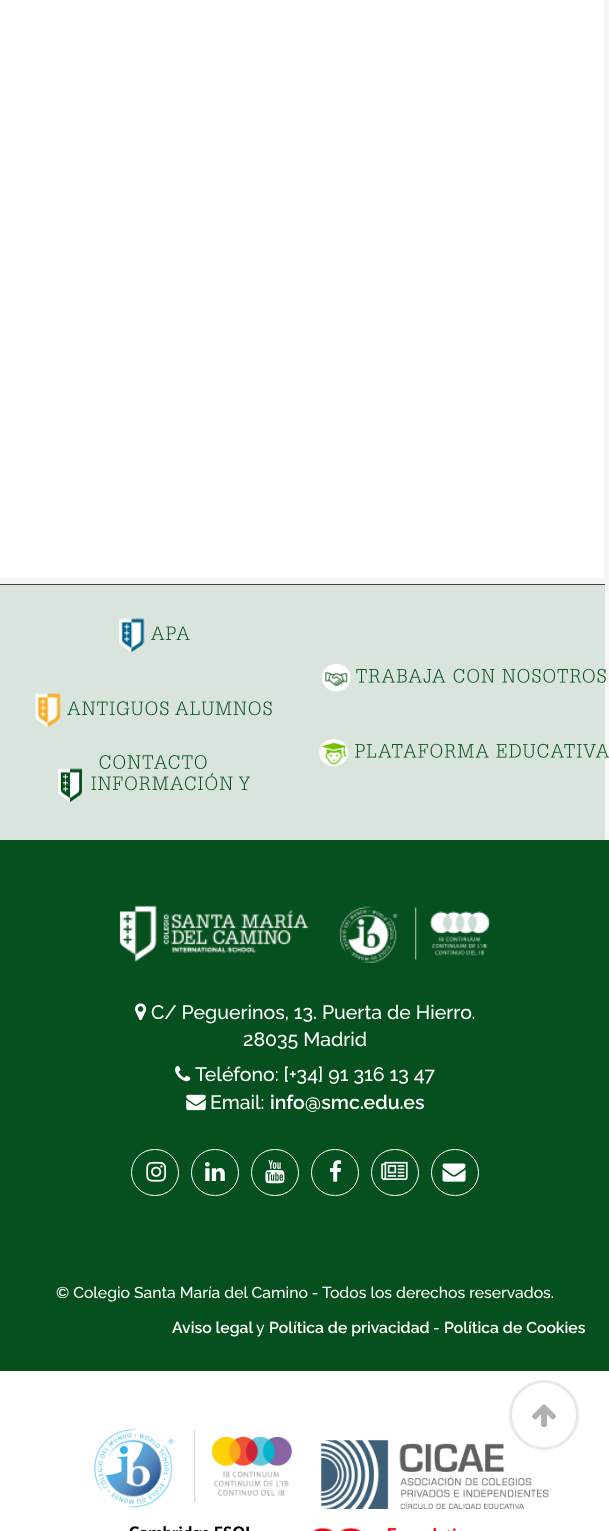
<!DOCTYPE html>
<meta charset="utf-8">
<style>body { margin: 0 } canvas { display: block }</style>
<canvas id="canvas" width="609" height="1531"></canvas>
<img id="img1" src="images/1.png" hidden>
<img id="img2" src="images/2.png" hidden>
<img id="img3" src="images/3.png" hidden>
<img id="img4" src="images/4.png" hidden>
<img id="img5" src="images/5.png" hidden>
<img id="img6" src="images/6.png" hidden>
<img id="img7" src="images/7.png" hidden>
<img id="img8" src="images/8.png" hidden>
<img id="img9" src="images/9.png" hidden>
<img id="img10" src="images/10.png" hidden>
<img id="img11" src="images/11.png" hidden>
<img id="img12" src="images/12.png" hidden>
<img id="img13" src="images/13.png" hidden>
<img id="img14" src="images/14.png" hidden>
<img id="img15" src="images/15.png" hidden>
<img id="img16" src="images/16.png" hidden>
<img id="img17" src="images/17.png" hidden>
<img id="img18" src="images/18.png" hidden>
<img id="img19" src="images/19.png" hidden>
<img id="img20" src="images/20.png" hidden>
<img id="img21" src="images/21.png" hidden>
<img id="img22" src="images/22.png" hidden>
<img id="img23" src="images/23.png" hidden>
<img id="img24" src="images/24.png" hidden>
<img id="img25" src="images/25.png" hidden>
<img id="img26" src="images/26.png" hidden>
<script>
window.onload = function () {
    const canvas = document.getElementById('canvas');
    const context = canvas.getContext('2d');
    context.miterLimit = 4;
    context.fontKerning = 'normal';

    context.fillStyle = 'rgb(246, 246, 246)';
    context.fillRect(0, 0, 609, 1531);
    context.fillStyle = 'rgb(255, 255, 255)';
    context.fillRect(0, 0, 604, 578);
    context.fillStyle = 'rgb(216, 228, 220)';
    context.fillRect(0, 585, 605, 255);
    context.fillStyle = 'rgb(68, 68, 68)';
    context.fillRect(0, 584, 605, 1);
    context.drawImage(document.getElementById('img1'), 119, 618, 26, 35);
    context.drawImage(document.getElementById('img2'), 151, 626, 39, 14);
    context.drawImage(document.getElementById('img3'), 321, 664, 31, 28);
    context.drawImage(document.getElementById('img4'), 356, 668, 250, 15);
    context.drawImage(document.getElementById('img5'), 35, 693, 26, 35);
    context.drawImage(document.getElementById('img6'), 67, 701, 205, 15);
    context.drawImage(document.getElementById('img7'), 99, 755, 108, 14);
    context.drawImage(document.getElementById('img8'), 58, 768, 24, 35);
    context.drawImage(document.getElementById('img9'), 91, 773, 160, 18);
    context.drawImage(document.getElementById('img10'), 318, 739, 31, 28);
    context.drawImage(document.getElementById('img11'), 355, 743, 254, 15);
    context.fillStyle = 'rgb(6, 79, 30)';
    context.fillRect(0, 840, 609, 531);
    context.drawImage(document.getElementById('img12'), 119, 905, 372, 58);
    context.drawImage(document.getElementById('img13'), 135, 1003, 12, 18);
    context.drawImage(document.getElementById('img14'), 175, 1065, 16, 17);
    context.drawImage(document.getElementById('img15'), 186, 1094, 20, 17);
    context.beginPath();
    context.roundRect(131.5, 1149.5, 47, 46, 23);
    context.strokeStyle = 'rgb(255, 255, 255)';
    context.stroke();
    context.drawImage(document.getElementById('img16'), 146, 1161, 21, 21);
    context.beginPath();
    context.roundRect(191.5, 1149.5, 47, 46, 23);
    context.stroke();
    context.drawImage(document.getElementById('img17'), 205, 1162, 20, 19);
    context.beginPath();
    context.roundRect(251.5, 1149.5, 47, 46, 23);
    context.stroke();
    context.drawImage(document.getElementById('img18'), 265, 1160, 20, 24);
    context.beginPath();
    context.roundRect(311.5, 1149.5, 47, 46, 23);
    context.stroke();
    context.drawImage(document.getElementById('img19'), 329, 1160, 13, 22);
    context.beginPath();
    context.roundRect(371.5, 1149.5, 47, 46, 23);
    context.stroke();
    context.drawImage(document.getElementById('img20'), 381, 1161, 27, 19);
    context.beginPath();
    context.roundRect(431.5, 1149.5, 47, 46, 23);
    context.stroke();
    context.drawImage(document.getElementById('img21'), 442, 1163, 24, 19);
    context.fillStyle = 'rgb(255, 255, 255)';
    context.fillRect(0, 1371, 609, 160);
    context.drawImage(document.getElementById('img22'), 94, 1429, 198, 79);
    context.drawImage(document.getElementById('img23'), 321, 1440, 228, 69);
    context.drawImage(document.getElementById('img24'), 129, 1525, 121, 6);
    context.drawImage(document.getElementById('img25'), 312, 1527, 144, 4);
    context.beginPath();
    context.arc(544, 1415, 33.5, 0, 2 * Math.PI);
    context.strokeStyle = 'rgb(232, 232, 232)';
    context.lineWidth = 3;
    context.stroke();
    context.drawImage(document.getElementById('img26'), 532, 1404, 24, 23);
    context.font = '500 19.5px Raleway';
    context.fillText('C/ Peguerinos, 13. Puerta de Hierro.', 151, 1019);
    context.fillText('28035 Madrid', 243, 1046);
    context.fillText('Teléfono: [+34] 91 316 13 47', 195, 1081);
    context.fillText('Email:', 210, 1109);
    context.font = '600 19.5px Raleway';
    context.fillText('info@smc.edu.es', 270, 1109);
    context.font = '500 15.75px Raleway';
    context.fillText('© Colegio Santa María del Camino - Todos los derechos reservados.', 56, 1298);
    context.font = '600 15.75px Raleway';
    context.fillText('Aviso legal', 172, 1333);
    context.font = '500 15.75px Raleway';
    context.fillText('y', 256, 1333);
    context.font = '600 15.75px Raleway';
    context.fillText('Política de privacidad', 269, 1333);
    context.font = '500 15.75px Raleway';
    context.fillText('-', 433, 1333);
    context.font = '600 15.75px Raleway';
    context.fillText('Política de Cookies', 444, 1333);
};
</script>
